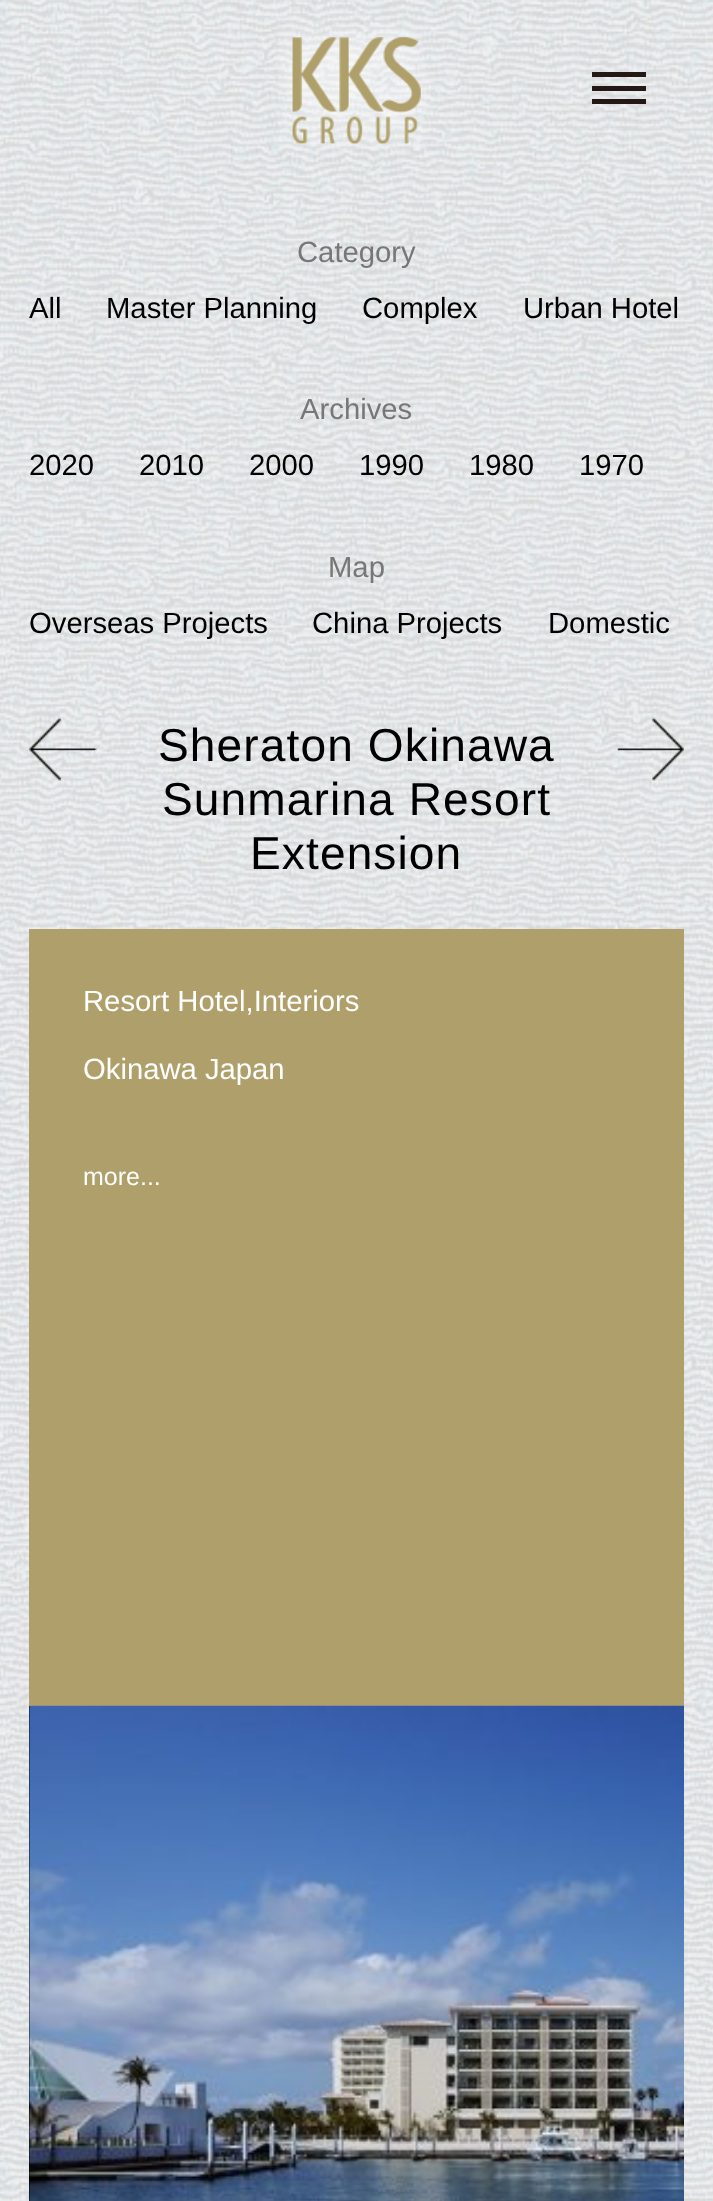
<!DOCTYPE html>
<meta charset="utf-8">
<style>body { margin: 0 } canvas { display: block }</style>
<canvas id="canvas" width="713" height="2201"></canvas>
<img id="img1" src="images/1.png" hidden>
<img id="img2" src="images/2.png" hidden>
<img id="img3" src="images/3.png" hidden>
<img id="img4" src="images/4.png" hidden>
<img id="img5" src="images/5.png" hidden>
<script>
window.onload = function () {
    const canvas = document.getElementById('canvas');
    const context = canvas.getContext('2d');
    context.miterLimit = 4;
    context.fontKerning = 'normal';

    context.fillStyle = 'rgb(255, 255, 255)';
    context.fillRect(0, 0, 713, 2201);
    context.drawImage(document.getElementById('img1'), 0, 0, 713, 2201);
    context.drawImage(document.getElementById('img2'), 278, 25, 155, 125);
    context.fillStyle = 'rgb(35, 24, 21)';
    context.fillRect(592, 72, 54, 5);
    context.fillRect(592, 86, 54, 5);
    context.fillRect(592, 99, 54, 5);
    context.drawImage(document.getElementById('img3'), 29, 717, 68, 64);
    context.drawImage(document.getElementById('img4'), 617, 717, 67, 64);
    context.fillStyle = 'rgb(175, 160, 107)';
    context.fillRect(29, 929, 655, 777);
    context.fillStyle = 'rgb(0, 0, 0)';
    context.fillRect(29, 1706, 1, 495);
    context.drawImage(document.getElementById('img5'), 29, 1705, 655, 496);
    context.font = '29.25px Liberation Sans';
    context.fillStyle = 'rgb(119, 119, 119)';
    context.fillText('Category', 297, 262);
    context.fillStyle = 'rgb(0, 0, 0)';
    context.fillText('All', 29, 318);
    context.fillText('Master Planning', 106, 318);
    context.fillText('Complex', 362, 318);
    context.fillText('Urban Hotel', 523, 318);
    context.fillStyle = 'rgb(119, 119, 119)';
    context.fillText('Archives', 300, 419);
    context.fillStyle = 'rgb(0, 0, 0)';
    context.fillText('2020', 29, 475);
    context.fillText('2010', 139, 475);
    context.fillText('2000', 249, 475);
    context.fillText('1990', 359, 475);
    context.fillText('1980', 469, 475);
    context.fillText('1970', 579, 475);
    context.fillStyle = 'rgb(119, 119, 119)';
    context.fillText('Map', 328, 577);
    context.fillStyle = 'rgb(0, 0, 0)';
    context.fillText('Overseas Projects', 29, 633);
    context.fillText('China Projects', 312, 633);
    context.fillText('Domestic', 548, 633);
    context.letterSpacing = '1.1px';
    context.font = '46.1px Liberation Sans';
    context.fillText('Sheraton Okinawa', 158, 761);
    context.fillText('Sunmarina Resort', 162, 815);
    context.fillText('Extension', 250, 869);
    context.letterSpacing = '0px';
    context.font = '29.25px Liberation Sans';
    context.fillStyle = 'rgb(255, 255, 255)';
    context.fillText('Resort Hotel,Interiors', 83, 1011);
    context.fillText('Okinawa Japan', 83, 1079);
    context.font = '25px Liberation Sans';
    context.fillText('more...', 83, 1185);
};
</script>
